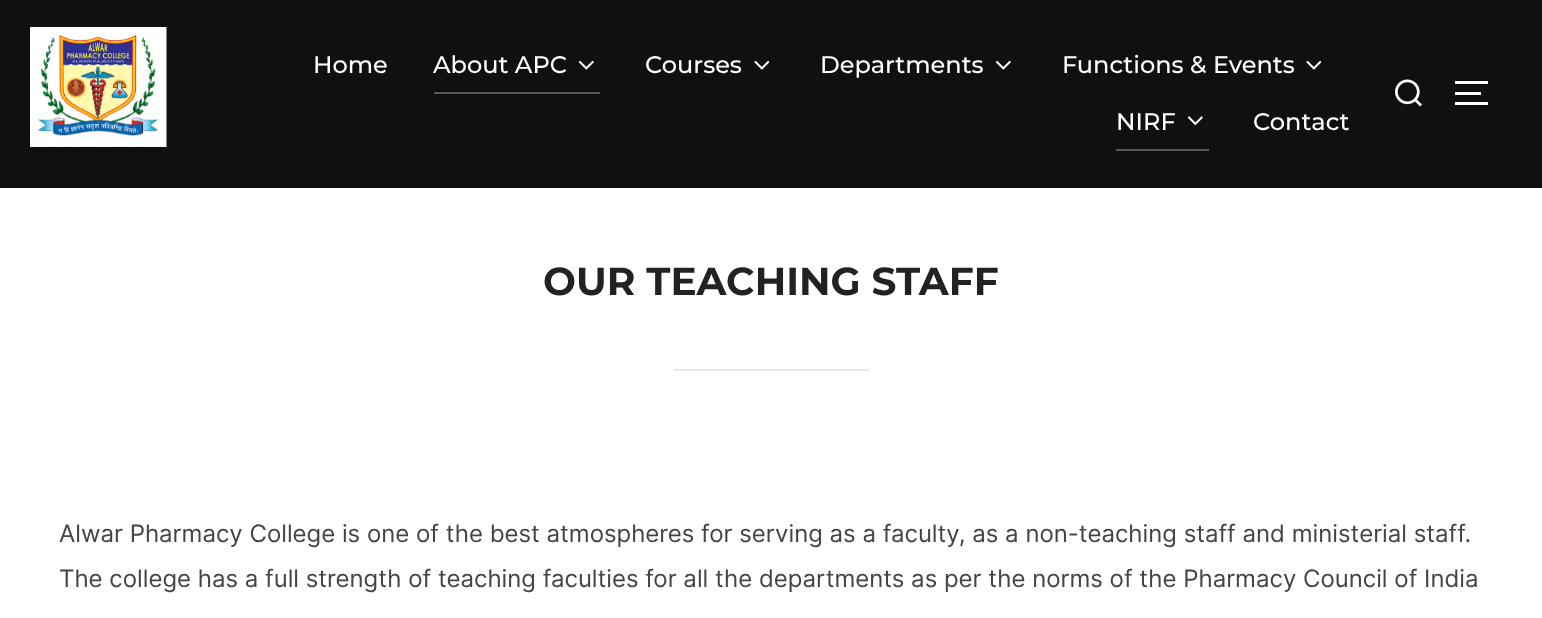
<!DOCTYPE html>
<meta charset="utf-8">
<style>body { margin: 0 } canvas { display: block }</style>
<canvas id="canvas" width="1542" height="618"></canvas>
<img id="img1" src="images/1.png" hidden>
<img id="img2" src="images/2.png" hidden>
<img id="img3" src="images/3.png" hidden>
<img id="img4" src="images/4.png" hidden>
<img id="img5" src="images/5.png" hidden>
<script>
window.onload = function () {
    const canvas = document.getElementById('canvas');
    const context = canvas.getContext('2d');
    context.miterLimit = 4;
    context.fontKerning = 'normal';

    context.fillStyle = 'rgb(255, 255, 255)';
    context.fillRect(0, 0, 1542, 618);
    context.fillStyle = 'rgb(16, 16, 16)';
    context.fillRect(0, 0, 1542, 188);
    context.drawImage(document.getElementById('img1'), 30, 27, 137, 120);
    context.fillStyle = 'rgb(88, 88, 88)';
    context.fillRect(434, 92, 166, 2);
    context.drawImage(document.getElementById('img2'), 578, 60, 16, 10);
    context.drawImage(document.getElementById('img3'), 754, 60, 16, 10);
    context.drawImage(document.getElementById('img2'), 995, 60, 16, 10);
    context.drawImage(document.getElementById('img3'), 1306, 60, 16, 10);
    context.fillRect(1116, 149, 93, 2);
    context.drawImage(document.getElementById('img4'), 1187, 116, 16, 10);
    context.drawImage(document.getElementById('img5'), 1395, 79, 27, 28);
    context.fillStyle = 'rgb(255, 255, 255)';
    context.fillRect(1455, 81, 33, 3);
    context.fillRect(1455, 92, 26, 3);
    context.fillRect(1455, 102, 33, 3);
    context.fillStyle = 'rgb(230, 230, 230)';
    context.fillRect(674, 369, 195, 2);
    context.font = '500 24px Montserrat';
    context.fillStyle = 'rgb(255, 255, 255)';
    context.fillText('Home', 313, 73);
    context.fillText('About APC', 433, 73);
    context.fillText('Courses', 645, 73);
    context.fillText('Departments', 820, 73);
    context.fillText('Functions & Events', 1062, 73);
    context.fillText('NIRF', 1116, 130);
    context.fillText('Contact', 1253, 130);
    context.font = 'bold 39px Montserrat';
    context.fillStyle = 'rgb(34, 34, 34)';
    context.fillText('OUR TEACHING STAFF', 543, 295);
    context.font = '24px Inter';
    context.fillStyle = 'rgb(68, 68, 68)';
    context.fillText('Alwar Pharmacy College is one of the best atmospheres for serving as a faculty, as a non-teaching staff and ministerial staff.', 59, 542);
    context.fillText('The college has a full strength of teaching faculties for all the departments as per the norms of the Pharmacy Council of India', 59, 587);
};
</script>
